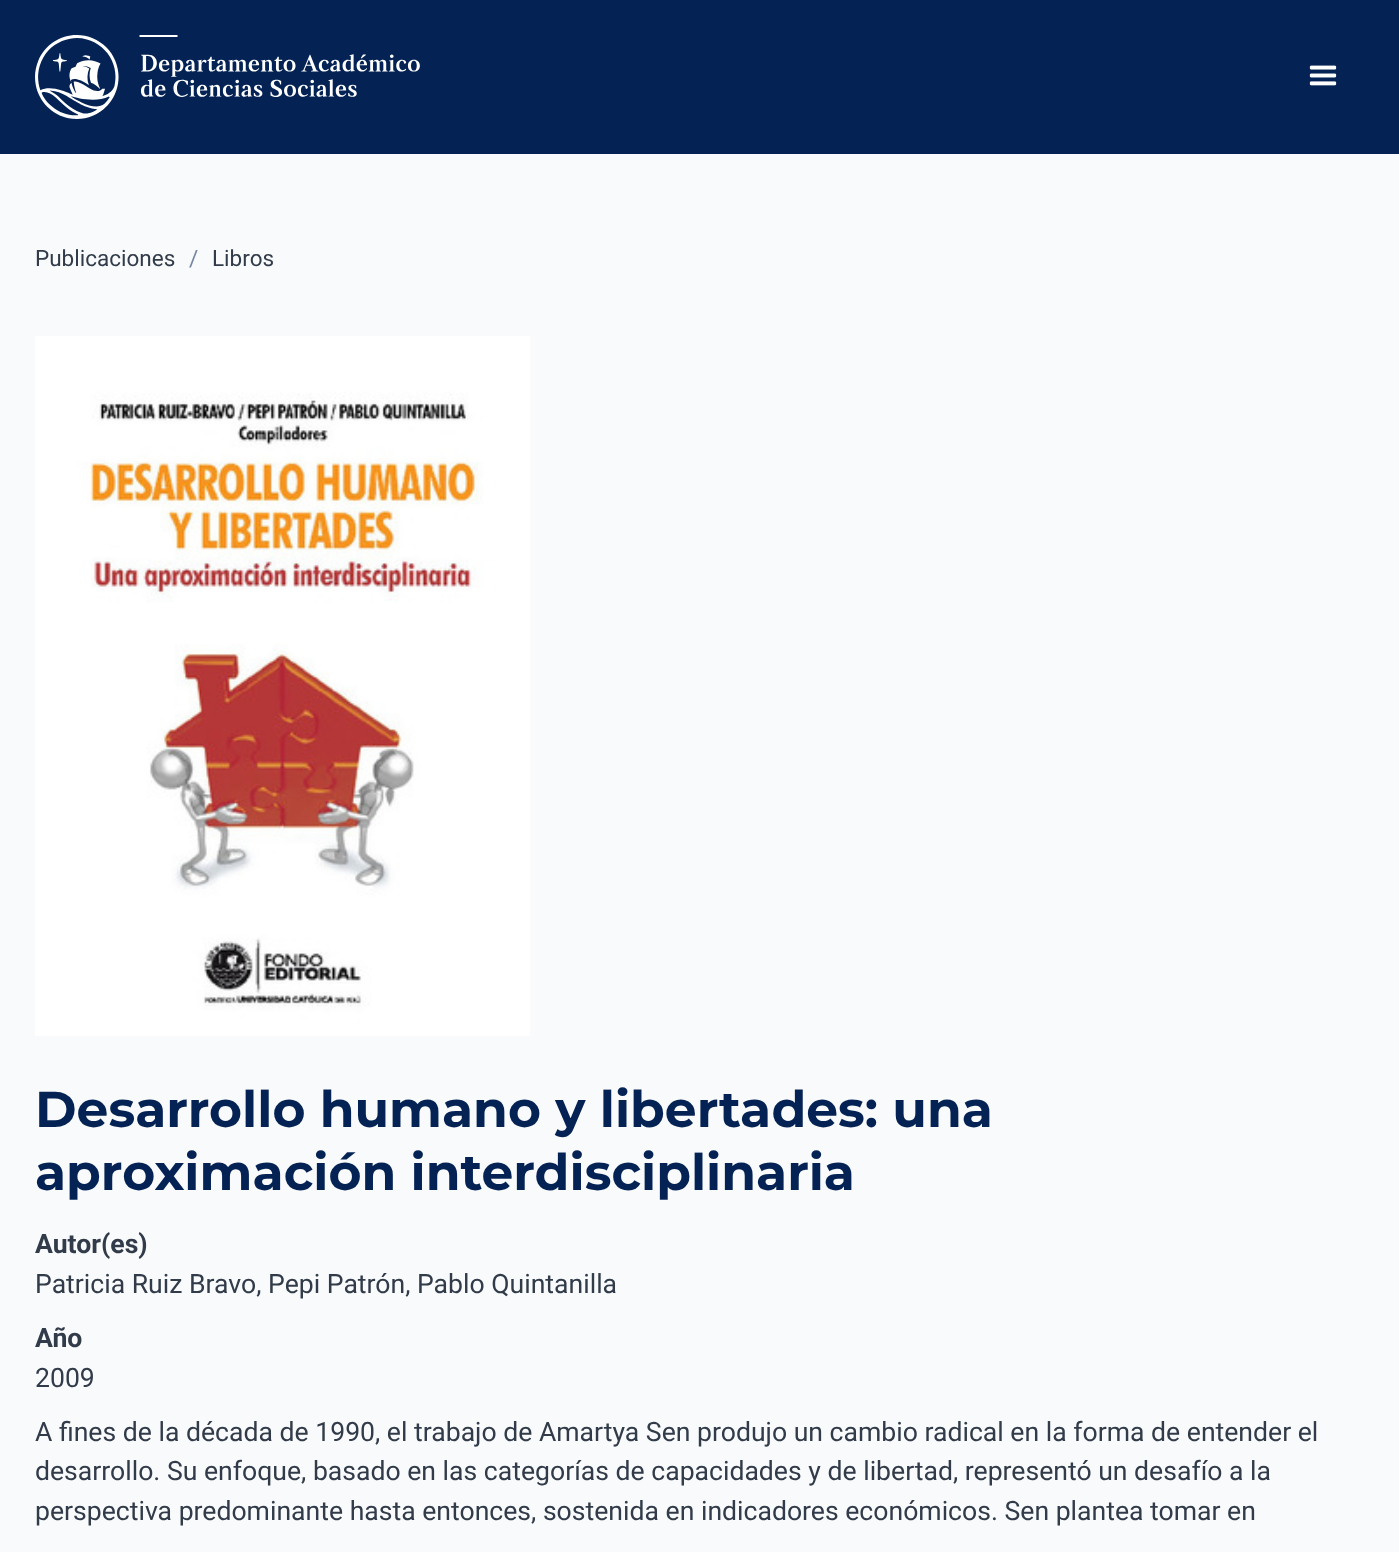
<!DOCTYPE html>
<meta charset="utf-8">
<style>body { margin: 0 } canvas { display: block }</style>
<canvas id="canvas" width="1399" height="1552"></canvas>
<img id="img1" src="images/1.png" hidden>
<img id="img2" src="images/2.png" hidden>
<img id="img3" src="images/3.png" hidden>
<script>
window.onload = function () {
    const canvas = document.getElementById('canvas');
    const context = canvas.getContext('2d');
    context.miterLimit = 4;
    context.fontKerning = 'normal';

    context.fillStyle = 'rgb(249, 250, 251)';
    context.fillRect(0, 0, 1399, 1552);
    context.fillStyle = 'rgb(4, 35, 84)';
    context.fillRect(0, 0, 1399, 154);
    context.drawImage(document.getElementById('img1'), 35, 35, 385, 84);
    context.drawImage(document.getElementById('img2'), 1309, 65, 28, 21);
    context.drawImage(document.getElementById('img3'), 35, 336, 495, 700);
    context.font = '22.5px Roboto';
    context.fillStyle = 'rgb(49, 59, 73)';
    context.fillText('Publicaciones', 35, 266);
    context.fillStyle = 'rgb(117, 135, 163)';
    context.fillText('/', 189, 266);
    context.fillStyle = 'rgb(49, 59, 73)';
    context.fillText('Libros', 212, 266);
    context.font = 'bold 50.4px Montserrat';
    context.fillStyle = 'rgb(4, 35, 84)';
    context.fillText('Desarrollo humano y libertades: una', 35, 1127);
    context.fillText('aproximación interdisciplinaria', 35, 1190);
    context.font = 'bold 26.6px Roboto';
    context.fillStyle = 'rgb(49, 59, 73)';
    context.fillText('Autor(es)', 35, 1253);
    context.font = '26.6px Roboto';
    context.fillText('Patricia Ruiz Bravo, Pepi Patrón, Pablo Quintanilla', 35, 1293);
    context.font = 'bold 26.6px Roboto';
    context.fillText('Año', 35, 1347);
    context.font = '26.6px Roboto';
    context.fillText('2009', 35, 1387);
    context.fillText('A fines de la década de 1990, el trabajo de Amartya Sen produjo un cambio radical en la forma de entender el', 35, 1441);
    context.fillText('desarrollo. Su enfoque, basado en las categorías de capacidades y de libertad, representó un desafío a la', 35, 1480);
    context.fillText('perspectiva predominante hasta entonces, sostenida en indicadores económicos. Sen plantea tomar en', 35, 1520);
};
</script>
